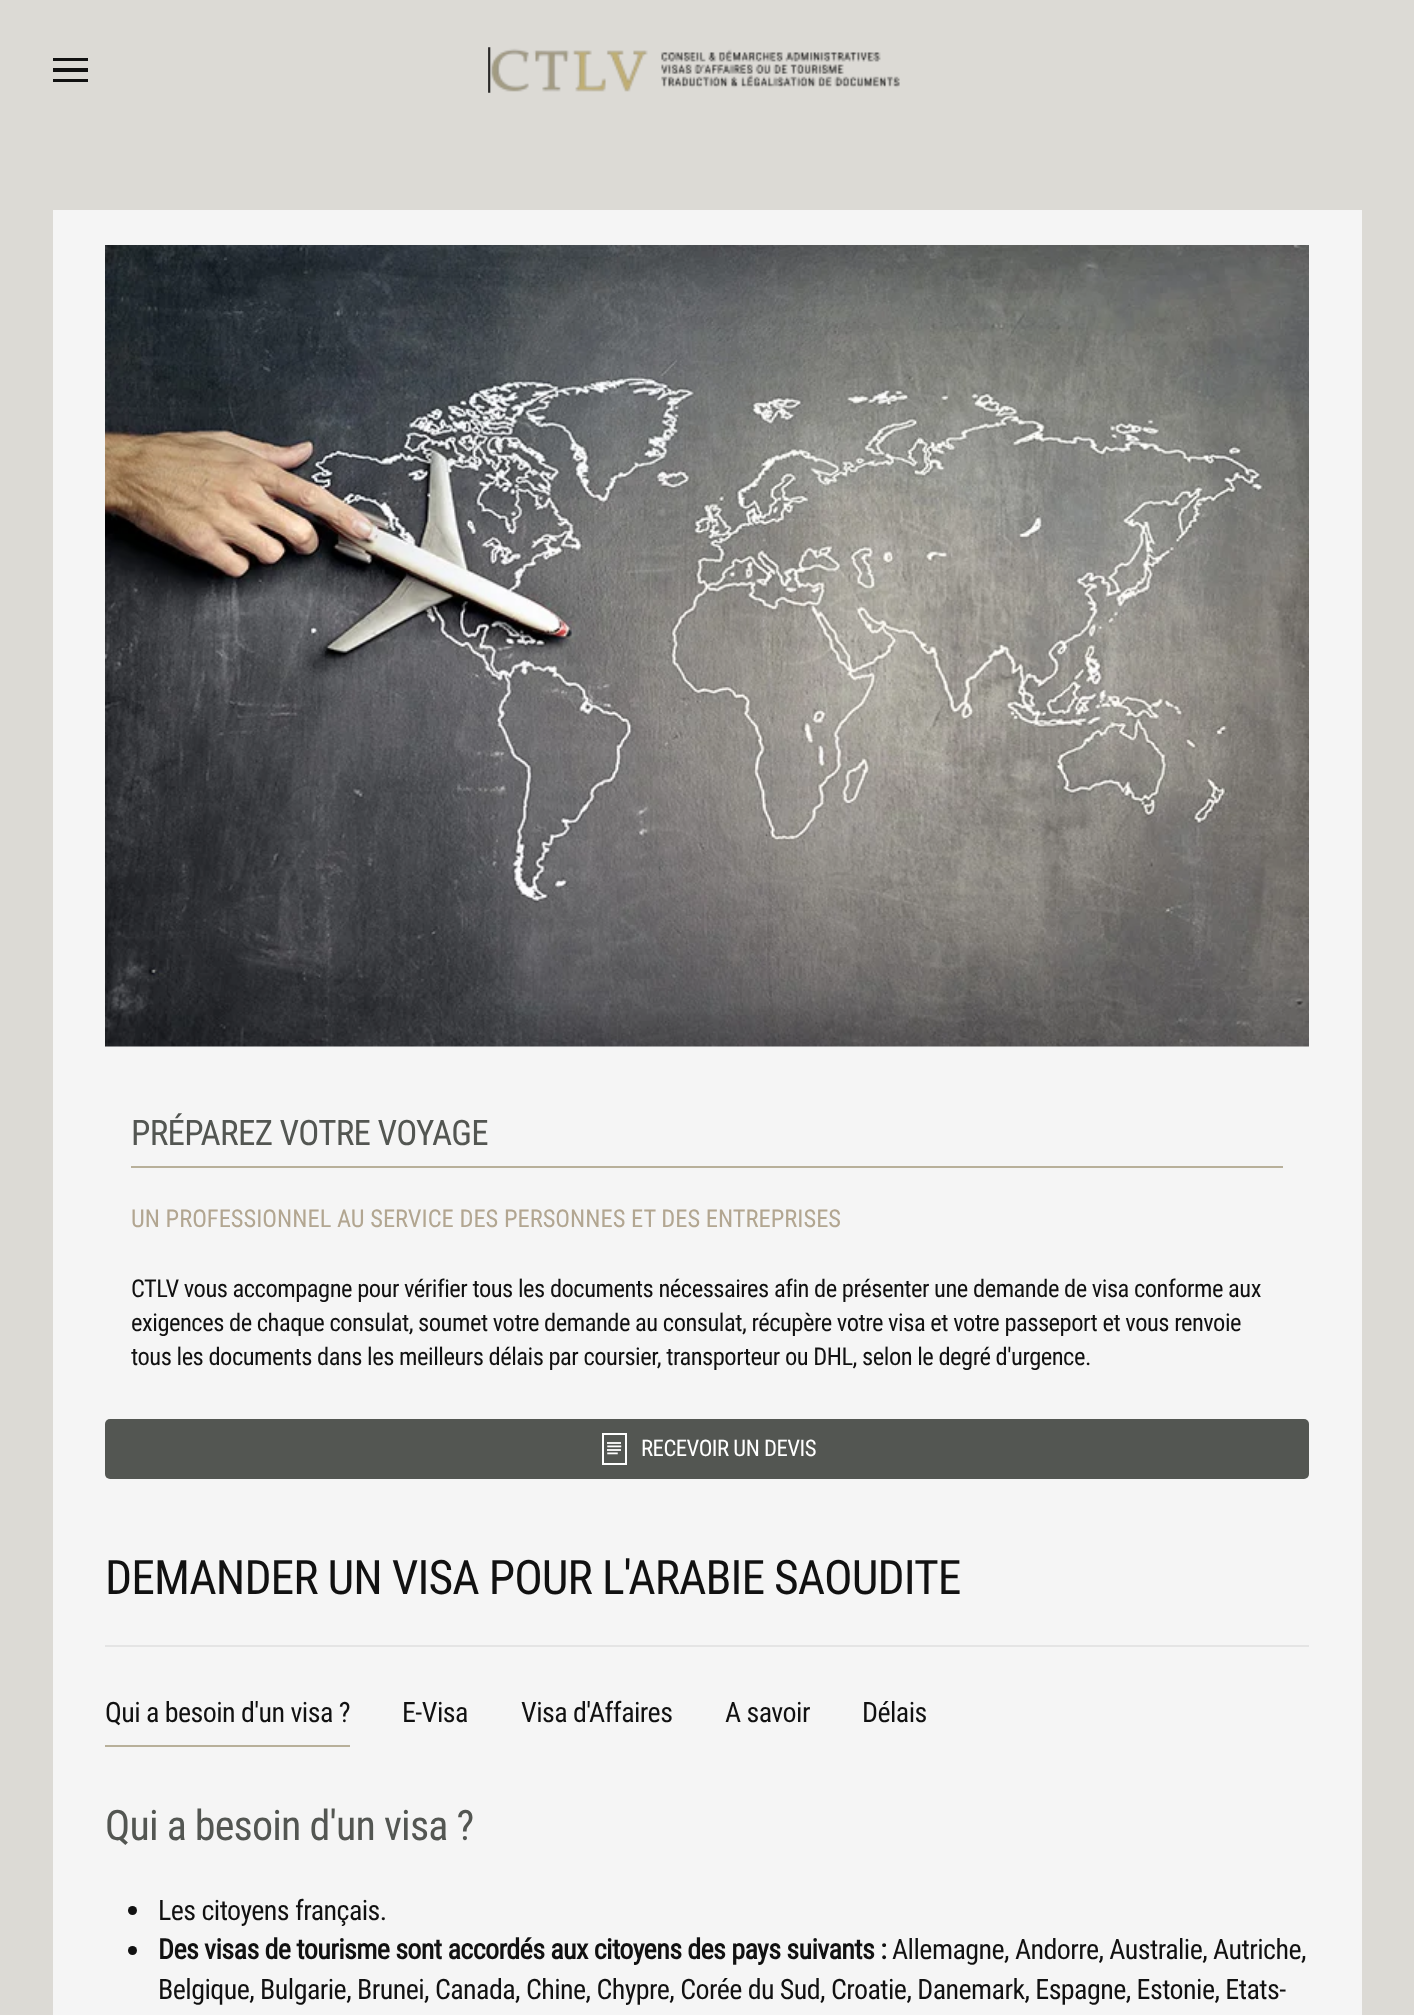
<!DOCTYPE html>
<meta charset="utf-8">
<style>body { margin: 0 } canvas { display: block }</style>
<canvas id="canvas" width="1414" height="2015"></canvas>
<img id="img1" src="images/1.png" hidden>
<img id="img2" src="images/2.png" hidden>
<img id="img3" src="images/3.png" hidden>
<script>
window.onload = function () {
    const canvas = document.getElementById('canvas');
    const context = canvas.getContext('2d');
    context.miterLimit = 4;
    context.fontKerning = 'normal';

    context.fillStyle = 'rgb(220, 218, 213)';
    context.fillRect(0, 0, 1414, 2015);
    context.fillStyle = 'rgb(17, 17, 17)';
    context.fillRect(53, 58, 35, 3);
    context.fillRect(53, 68, 35, 4);
    context.fillRect(53, 79, 35, 3);
    context.drawImage(document.getElementById('img1'), 488, 47, 412, 46);
    context.fillStyle = 'rgb(245, 245, 245)';
    context.fillRect(53, 210, 1309, 1805);
    context.drawImage(document.getElementById('img2'), 105, 245, 1204, 802);
    context.fillStyle = 'rgb(184, 176, 154)';
    context.fillRect(131, 1166, 1152, 2);
    context.fillStyle = 'rgb(83, 86, 82)';
    context.beginPath();
    context.roundRect(105, 1419, 1204, 60, 5);
    context.fill();
    context.drawImage(document.getElementById('img3'), 602, 1433, 25, 32);
    context.fillStyle = 'rgb(228, 228, 228)';
    context.fillRect(105, 1645, 1204, 2);
    context.fillStyle = 'rgb(184, 176, 154)';
    context.fillRect(105, 1745, 245, 2);
    context.fillStyle = 'rgb(17, 17, 17)';
    context.beginPath();
    context.arc(132.5, 1910.5, 4.5, 0, 2 * Math.PI);
    context.fill();
    context.beginPath();
    context.arc(132.5, 1950.5, 4.5, 0, 2 * Math.PI);
    context.fill();
    context.letterSpacing = '-0.7px';
    context.font = '35px Roboto Condensed';
    context.fillStyle = 'rgb(83, 86, 82)';
    context.fillText('PRÉPAREZ VOTRE VOYAGE', 131, 1145);
    context.letterSpacing = '0px';
    context.font = '24.5px Roboto Condensed';
    context.fillStyle = 'rgb(178, 166, 145)';
    context.fillText('UN PROFESSIONNEL AU SERVICE DES PERSONNES ET DES ENTREPRISES', 131, 1227);
    context.letterSpacing = '-0.49px';
    context.fillStyle = 'rgb(17, 17, 17)';
    context.fillText('CTLV vous accompagne pour vérifier tous les documents nécessaires afin de présenter une demande de visa conforme aux', 131, 1297);
    context.fillText('exigences de chaque consulat, soumet votre demande au consulat, récupère votre visa et votre passeport et vous renvoie', 131, 1331);
    context.fillText('tous les documents dans les meilleurs délais par coursier, transporteur ou DHL, selon le degré d\'urgence.', 131, 1365);
    context.letterSpacing = '-0.5px';
    context.font = '22.75px Roboto Condensed';
    context.fillStyle = 'rgb(255, 255, 255)';
    context.fillText('RECEVOIR UN DEVIS', 641, 1456);
    context.letterSpacing = '-0.95px';
    context.font = '47.6px Roboto Condensed';
    context.fillStyle = 'rgb(17, 17, 17)';
    context.fillText('DEMANDER UN VISA POUR L\'ARABIE SAOUDITE', 105, 1594);
    context.letterSpacing = '-0.56px';
    context.font = '28px Roboto Condensed';
    context.fillText('Qui a besoin d\'un visa ?', 105, 1722);
    context.fillText('E-Visa', 402, 1722);
    context.fillText('Visa d\'Affaires', 521, 1722);
    context.fillText('A savoir', 725, 1722);
    context.fillText('Délais', 862, 1722);
    context.letterSpacing = '-0.8px';
    context.font = '42px Roboto Condensed';
    context.fillStyle = 'rgb(83, 86, 82)';
    context.fillText('Qui a besoin d\'un visa ?', 105, 1840);
    context.letterSpacing = '-0.56px';
    context.font = '28px Roboto Condensed';
    context.fillStyle = 'rgb(17, 17, 17)';
    context.fillText('Les citoyens français.', 158, 1920);
    context.font = 'bold 28px Roboto Condensed';
    context.fillText('Des visas de tourisme sont accordés aux citoyens des pays suivants :', 158, 1959);
    context.font = '28px Roboto Condensed';
    context.fillText('Allemagne, Andorre, Australie, Autriche,', 892, 1959);
    context.fillText('Belgique, Bulgarie, Brunei, Canada, Chine, Chypre, Corée du Sud, Croatie, Danemark, Espagne, Estonie, Etats-', 158, 1999);
};
</script>
